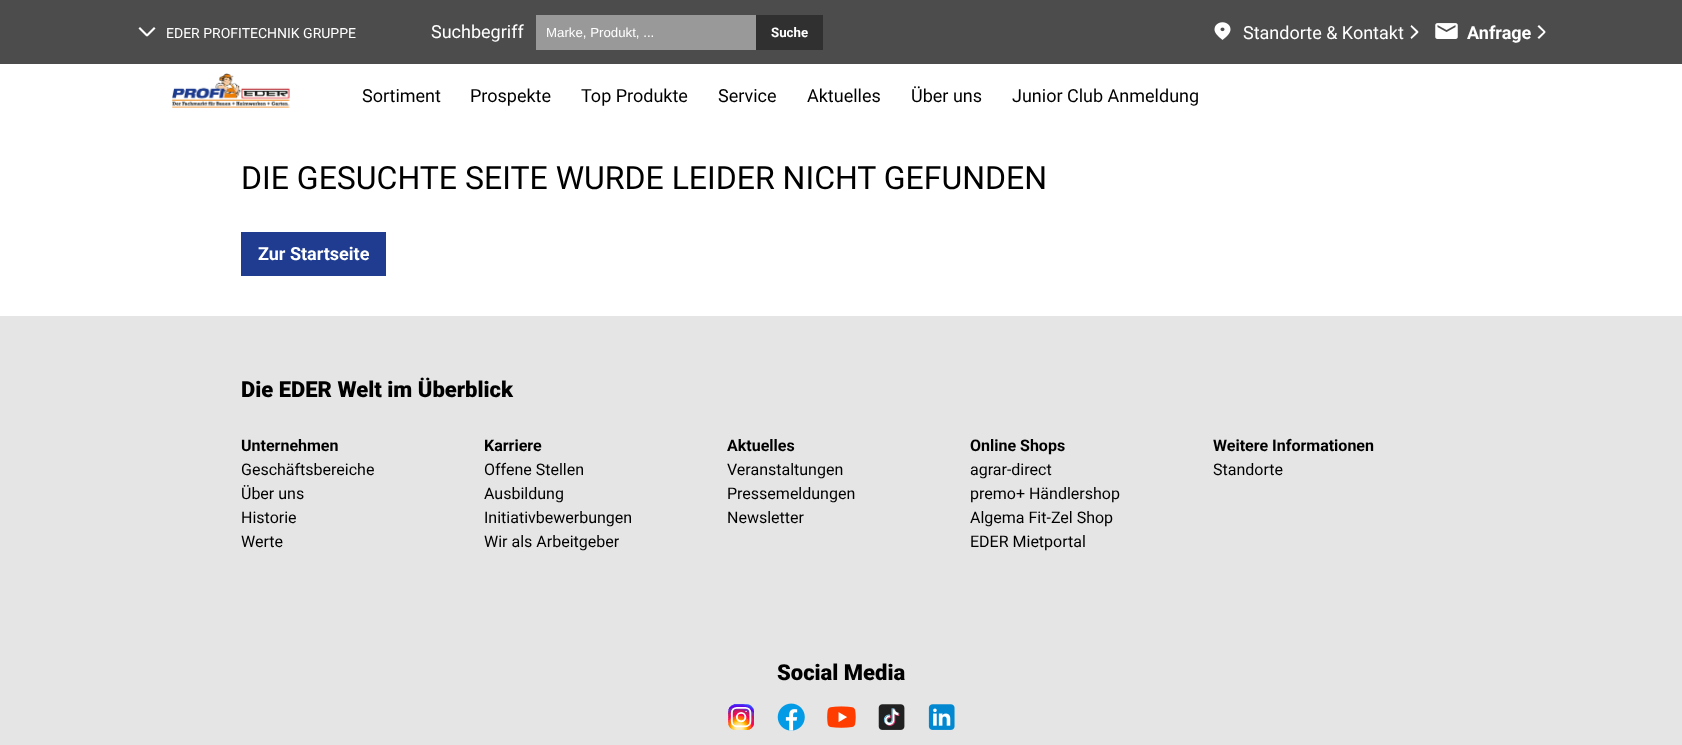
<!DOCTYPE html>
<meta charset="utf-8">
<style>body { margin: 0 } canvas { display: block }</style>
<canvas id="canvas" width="1682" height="745"></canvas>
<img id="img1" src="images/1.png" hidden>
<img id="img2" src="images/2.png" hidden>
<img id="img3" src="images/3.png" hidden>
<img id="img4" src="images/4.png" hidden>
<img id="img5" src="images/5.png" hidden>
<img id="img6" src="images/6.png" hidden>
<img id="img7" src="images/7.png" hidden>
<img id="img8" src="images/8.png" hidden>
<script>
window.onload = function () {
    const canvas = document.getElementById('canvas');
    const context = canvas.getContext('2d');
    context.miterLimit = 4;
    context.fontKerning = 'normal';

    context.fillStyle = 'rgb(255, 255, 255)';
    context.fillRect(0, 0, 1682, 745);
    context.fillStyle = 'rgb(76, 76, 76)';
    context.fillRect(0, 0, 1682, 64);
    context.fillStyle = 'rgb(255, 255, 255)';
    context.beginPath();
    context.moveTo(155.5, 28.5);
    context.lineTo(147.5, 36.5);
    context.lineTo(146, 35);
    context.lineTo(154, 27);
    context.closePath();
    context.fill();
    context.beginPath();
    context.moveTo(148, 35);
    context.lineTo(146.5, 36.5);
    context.lineTo(138.5, 28.5);
    context.lineTo(140, 27);
    context.closePath();
    context.fill();
    context.fillStyle = 'rgb(153, 153, 153)';
    context.fillRect(536, 15, 220, 35);
    context.fillStyle = 'rgb(48, 48, 48)';
    context.fillRect(756, 15, 67, 35);
    context.drawImage(document.getElementById('img1'), 1214, 22, 17, 18);
    context.fillStyle = 'rgb(255, 255, 255)';
    context.beginPath();
    context.moveTo(1411.5, 25);
    context.lineTo(1418.5, 31.5);
    context.lineTo(1417, 33);
    context.lineTo(1410.5, 26.5);
    context.closePath();
    context.fill();
    context.beginPath();
    context.moveTo(1417, 31);
    context.lineTo(1418.5, 32.5);
    context.lineTo(1411.5, 39);
    context.lineTo(1410.5, 37.5);
    context.closePath();
    context.fill();
    context.drawImage(document.getElementById('img2'), 1435, 23, 23, 16);
    context.beginPath();
    context.moveTo(1539, 25);
    context.lineTo(1545.5, 31.5);
    context.lineTo(1544.5, 33);
    context.lineTo(1537.5, 26.5);
    context.closePath();
    context.fill();
    context.beginPath();
    context.moveTo(1544.5, 31);
    context.lineTo(1545.5, 32.5);
    context.lineTo(1539, 39);
    context.lineTo(1537.5, 37.5);
    context.closePath();
    context.fill();
    context.drawImage(document.getElementById('img3'), 172, 73, 118, 35);
    context.fillStyle = 'rgb(31, 60, 144)';
    context.fillRect(241, 232, 145, 44);
    context.fillStyle = 'rgb(229, 229, 229)';
    context.fillRect(0, 316, 1682, 429);
    context.drawImage(document.getElementById('img4'), 728, 704, 26, 26);
    context.drawImage(document.getElementById('img5'), 777, 703, 28, 28);
    context.drawImage(document.getElementById('img6'), 827, 706, 29, 22);
    context.drawImage(document.getElementById('img7'), 878, 704, 27, 26);
    context.drawImage(document.getElementById('img8'), 928, 704, 27, 26);
    context.font = '14px Roboto';
    context.fillStyle = 'rgb(255, 255, 255)';
    context.fillText('EDER PROFITECHNIK GRUPPE', 166, 38);
    context.font = '18px Roboto';
    context.fillText('Suchbegriff', 431, 38);
    context.font = '13.25px Liberation Sans';
    context.fillText('Marke, Produkt, ...', 546, 37);
    context.font = 'bold 13.25px Roboto';
    context.fillText('Suche', 771, 37);
    context.font = '18px Roboto';
    context.fillText('Standorte & Kontakt', 1243, 39);
    context.font = 'bold 18px Roboto';
    context.fillText('Anfrage', 1467, 39);
    context.font = '18px Roboto';
    context.fillStyle = 'rgb(0, 0, 0)';
    context.fillText('Sortiment', 362, 102);
    context.fillText('Prospekte', 470, 102);
    context.fillText('Top Produkte', 581, 102);
    context.fillText('Service', 718, 102);
    context.fillText('Aktuelles', 807, 102);
    context.fillText('Über uns', 911, 102);
    context.fillText('Junior Club Anmeldung', 1012, 102);
    context.font = '32px Roboto';
    context.fillText('DIE GESUCHTE SEITE WURDE LEIDER NICHT GEFUNDEN', 241, 189);
    context.font = 'bold 18px Roboto';
    context.fillStyle = 'rgb(255, 255, 255)';
    context.fillText('Zur Startseite', 258, 260);
    context.font = '900 22px Roboto';
    context.fillStyle = 'rgb(0, 0, 0)';
    context.fillText('Die EDER Welt im Überblick', 241, 397);
    context.font = 'bold 16px Roboto';
    context.fillText('Unternehmen', 241, 451);
    context.font = '16px Roboto';
    context.fillText('Geschäftsbereiche', 241, 475);
    context.fillText('Über uns', 241, 499);
    context.fillText('Historie', 241, 523);
    context.fillText('Werte', 241, 547);
    context.font = 'bold 16px Roboto';
    context.fillText('Karriere', 484, 451);
    context.font = '16px Roboto';
    context.fillText('Offene Stellen', 484, 475);
    context.fillText('Ausbildung', 484, 499);
    context.fillText('Initiativbewerbungen', 484, 523);
    context.fillText('Wir als Arbeitgeber', 484, 547);
    context.font = 'bold 16px Roboto';
    context.fillText('Aktuelles', 727, 451);
    context.font = '16px Roboto';
    context.fillText('Veranstaltungen', 727, 475);
    context.fillText('Pressemeldungen', 727, 499);
    context.fillText('Newsletter', 727, 523);
    context.font = 'bold 16px Roboto';
    context.fillText('Online Shops', 970, 451);
    context.font = '16px Roboto';
    context.fillText('agrar-direct', 970, 475);
    context.fillText('premo+ Händlershop', 970, 499);
    context.fillText('Algema Fit-Zel Shop', 970, 523);
    context.fillText('EDER Mietportal', 970, 547);
    context.font = 'bold 16px Roboto';
    context.fillText('Weitere Informationen', 1213, 451);
    context.font = '16px Roboto';
    context.fillText('Standorte', 1213, 475);
    context.font = '900 22px Roboto';
    context.fillText('Social Media', 777, 680);
};
</script>
